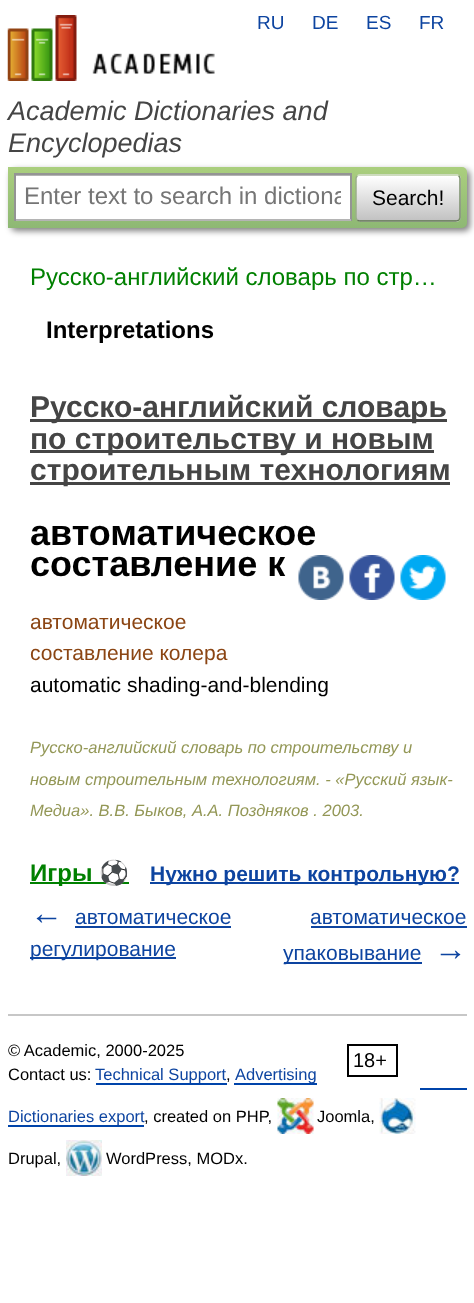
<!DOCTYPE html>
<meta charset="utf-8">
<style>body { margin: 0 } canvas { display: block }</style>
<canvas id="canvas" width="474" height="1303"></canvas>
<img id="img1" src="images/1.png" hidden>
<img id="img2" src="images/2.png" hidden>
<img id="img3" src="images/3.png" hidden>
<img id="img4" src="images/4.png" hidden>
<img id="img5" src="images/5.png" hidden>
<img id="img6" src="images/6.png" hidden>
<img id="img7" src="images/7.png" hidden>
<script>
window.onload = function () {
    const canvas = document.getElementById('canvas');
    const context = canvas.getContext('2d');
    context.miterLimit = 4;
    context.fontKerning = 'normal';
    let gradient;

    context.fillStyle = 'rgb(255, 255, 255)';
    context.fillRect(0, 0, 474, 1303);
    context.drawImage(document.getElementById('img1'), 7, 15, 208, 66);
    context.fillStyle = 'rgba(0, 0, 0, 0.5)';
    context.filter = 'blur(3px)';
    context.beginPath();
    context.roundRect(11, 170, 459, 61, 5);
    context.fill();
    context.filter = 'none';
    gradient = context.createLinearGradient(237, 166, 237, 228);
    gradient.addColorStop(0, 'rgb(171, 207, 126)');
    gradient.addColorStop(1, 'rgb(142, 184, 116)');
    context.fillStyle = gradient;
    context.beginPath();
    context.roundRect(8, 167, 459, 61, [0, 5, 5, 0]);
    context.fill();
    context.fillStyle = 'rgb(255, 255, 255)';
    context.fillRect(16, 176, 334, 43);
    context.fillStyle = 'rgb(179, 179, 179)';
    context.fillRect(15, 175, 335, 1);
    context.fillStyle = 'rgb(148, 148, 148)';
    context.fillRect(14, 173, 337, 2);
    context.fillRect(350, 173, 2, 48);
    context.fillStyle = 'rgb(180, 180, 180)';
    context.fillRect(14, 219, 337, 2);
    context.fillStyle = 'rgb(148, 148, 148)';
    context.fillRect(14, 173, 2, 48);
    context.save();
    context.beginPath();
    context.roundRect(356, 174, 105, 48, 5);
    context.clip();
    gradient = context.createLinearGradient(408, 131, 408, 176);
    gradient.addColorStop(0, 'rgb(255, 255, 255)');
    gradient.addColorStop(1, 'rgb(193, 193, 193)');
    context.fillStyle = gradient;
    context.fillRect(356, 174, 105, 2);
    gradient = context.createLinearGradient(408, 176, 408, 221);
    gradient.addColorStop(0, 'rgb(255, 255, 255)');
    gradient.addColorStop(1, 'rgb(193, 193, 193)');
    context.fillStyle = gradient;
    context.fillRect(356, 176, 105, 45);
    gradient = context.createLinearGradient(408, 221, 408, 266);
    gradient.addColorStop(0, 'rgb(255, 255, 255)');
    gradient.addColorStop(1, 'rgb(193, 193, 193)');
    context.fillStyle = gradient;
    context.fillRect(356, 221, 105, 1);
    context.restore();
    context.beginPath();
    context.moveTo(357.5, 176);
    context.bezierCurveTo(358, 175, 359, 175, 360, 175);
    context.lineTo(456, 175);
    context.bezierCurveTo(457, 175, 458, 175, 458.5, 176);
    context.strokeStyle = 'rgb(209, 228, 188)';
    context.lineWidth = 1.5;
    context.stroke();
    context.beginPath();
    context.moveTo(458.5, 176);
    context.bezierCurveTo(459.5, 176.5, 460, 177.5, 460, 178.5);
    context.lineTo(460, 217.5);
    context.bezierCurveTo(460, 218.5, 459.5, 219.5, 458.5, 220);
    context.strokeStyle = 'rgb(122, 142, 105)';
    context.stroke();
    context.beginPath();
    context.moveTo(458.5, 220);
    context.bezierCurveTo(458, 221, 457, 221, 456, 221);
    context.lineTo(360, 221);
    context.bezierCurveTo(359, 221, 358, 221, 357.5, 220);
    context.strokeStyle = 'rgb(93, 114, 80)';
    context.stroke();
    context.beginPath();
    context.moveTo(357.5, 220);
    context.bezierCurveTo(356.5, 219.5, 356, 218.5, 356, 217.5);
    context.lineTo(356, 178.5);
    context.bezierCurveTo(356, 177.5, 356.5, 176.5, 357.5, 176);
    context.strokeStyle = 'rgb(154, 174, 137)';
    context.stroke();
    context.fillStyle = 'rgb(69, 69, 69)';
    context.fillRect(30, 419, 417, 3);
    context.fillRect(30, 450, 404, 3);
    context.fillRect(30, 482, 420, 3);
    context.drawImage(document.getElementById('img2'), 298, 555, 46, 45);
    context.drawImage(document.getElementById('img3'), 349, 555, 46, 45);
    context.drawImage(document.getElementById('img4'), 400, 555, 46, 45);
    context.fillStyle = 'rgb(0, 128, 0)';
    context.fillRect(30, 882, 99, 2);
    context.fillStyle = 'rgb(13, 68, 160)';
    context.fillRect(150, 882, 309, 2);
    context.fillRect(75, 926, 156, 2);
    context.fillRect(30, 957, 146, 2);
    context.fillRect(311, 926, 156, 2);
    context.fillRect(284, 962, 138, 2);
    context.fillStyle = 'rgb(199, 199, 199)';
    context.fillRect(8, 1014, 459, 2);
    context.strokeStyle = 'rgb(0, 0, 0)';
    context.lineWidth = 2;
    context.strokeRect(348, 1045, 49, 31);
    context.fillStyle = 'rgb(0, 68, 170)';
    context.fillRect(96, 1083, 131, 2);
    context.fillRect(234, 1083, 83, 2);
    context.fillRect(420, 1088, 47, 2);
    context.fillRect(8, 1125, 136, 2);
    context.drawImage(document.getElementById('img5'), 277, 1098, 37, 36);
    context.drawImage(document.getElementById('img6'), 379, 1098, 37, 36);
    context.drawImage(document.getElementById('img7'), 66, 1140, 36, 36);
    context.font = '19px Liberation Sans';
    context.fillStyle = 'rgb(13, 68, 160)';
    context.fillText('RU', 257, 29);
    context.fillText('DE', 312, 29);
    context.fillText('ES', 366, 29);
    context.fillText('FR', 419, 29);
    context.font = 'italic 27px Liberation Sans';
    context.fillStyle = 'rgb(69, 69, 69)';
    context.fillText('Academic Dictionaries and', 8, 120);
    context.fillText('Encyclopedias', 8, 152);
    context.save();
    context.beginPath();
    context.rect(24, 183, 317, 27);
    context.clip();
    context.font = '24px Liberation Sans';
    context.fillStyle = 'rgb(117, 117, 117)';
    context.fillText('Enter text to search in dictiona', 24, 204);
    context.restore();
    context.font = '21px Liberation Sans';
    context.fillStyle = 'rgb(0, 0, 0)';
    context.fillText('Search!', 372, 205);
    context.font = '24px Liberation Sans';
    context.fillStyle = 'rgb(0, 128, 0)';
    context.fillText('Русско-английский словарь по стр…', 30, 285);
    context.font = 'bold 24px Liberation Sans';
    context.fillStyle = 'rgb(0, 0, 0)';
    context.fillText('Interpretations', 46, 338);
    context.font = 'bold 30px Liberation Sans';
    context.fillStyle = 'rgb(69, 69, 69)';
    context.fillText('Русско-английский словарь', 30, 417);
    context.fillText('по строительству и новым', 30, 449);
    context.fillText('строительным технологиям', 30, 480);
    context.font = 'bold 36px Liberation Sans';
    context.fillStyle = 'rgb(0, 0, 0)';
    context.fillText('автоматическое', 30, 545);
    context.fillText('составление к', 30, 576);
    context.font = '21px Liberation Sans';
    context.fillStyle = 'rgb(139, 69, 19)';
    context.fillText('автоматическое', 30, 629);
    context.fillText('составление колера', 30, 660);
    context.fillStyle = 'rgb(0, 0, 0)';
    context.fillText('automatic shading-and-blending', 30, 692);
    context.font = 'italic 16.5px Liberation Sans';
    context.fillStyle = 'rgb(147, 151, 86)';
    context.fillText('Русско-английский словарь по строительству и', 30, 753);
    context.fillText('новым строительным технологиям. - «Русский язык-', 30, 785);
    context.fillText('Медиа». В.В. Быков, А.А. Поздняков . 2003.', 30, 816);
    context.font = 'bold 24px Liberation Sans';
    context.fillStyle = 'rgb(0, 128, 0)';
    context.fillText('Игры', 30, 881);
    context.font = 'bold 24px Noto Color Emoji';
    context.fillText('⚽', 99, 881);
    context.font = 'bold 21px Liberation Sans';
    context.fillStyle = 'rgb(13, 68, 160)';
    context.fillText('Нужно решить контрольную?', 150, 881);
    context.font = 'bold 33px Liberation Sans';
    context.fillText('←', 30, 924);
    context.font = '21px Liberation Sans';
    context.fillText('автоматическое', 75, 924);
    context.fillText('регулирование', 30, 956);
    context.fillText('автоматическое', 310, 924);
    context.fillText('упаковывание', 283, 960);
    context.font = 'bold 33px Liberation Sans';
    context.fillText('→', 434, 960);
    context.font = '16.5px Liberation Sans';
    context.fillStyle = 'rgb(0, 0, 0)';
    context.fillText('© Academic, 2000-2025', 8, 1056);
    context.font = '20px Liberation Sans';
    context.fillText('18+', 353, 1067);
    context.font = '16.5px Liberation Sans';
    context.fillText('Contact us:', 8, 1080);
    context.fillStyle = 'rgb(13, 68, 160)';
    context.fillText('Technical Support', 95, 1080);
    context.fillStyle = 'rgb(0, 0, 0)';
    context.fillText(',', 226, 1080);
    context.fillStyle = 'rgb(13, 68, 160)';
    context.fillText('Advertising', 235, 1080);
    context.fillText('Dictionaries export', 8, 1122);
    context.fillStyle = 'rgb(0, 0, 0)';
    context.fillText(', created on PHP,', 144, 1122);
    context.fillText('Joomla,', 317, 1122);
    context.fillText('Drupal,', 8, 1164);
    context.fillText('WordPress, MODx.', 106, 1164);
};
</script>
